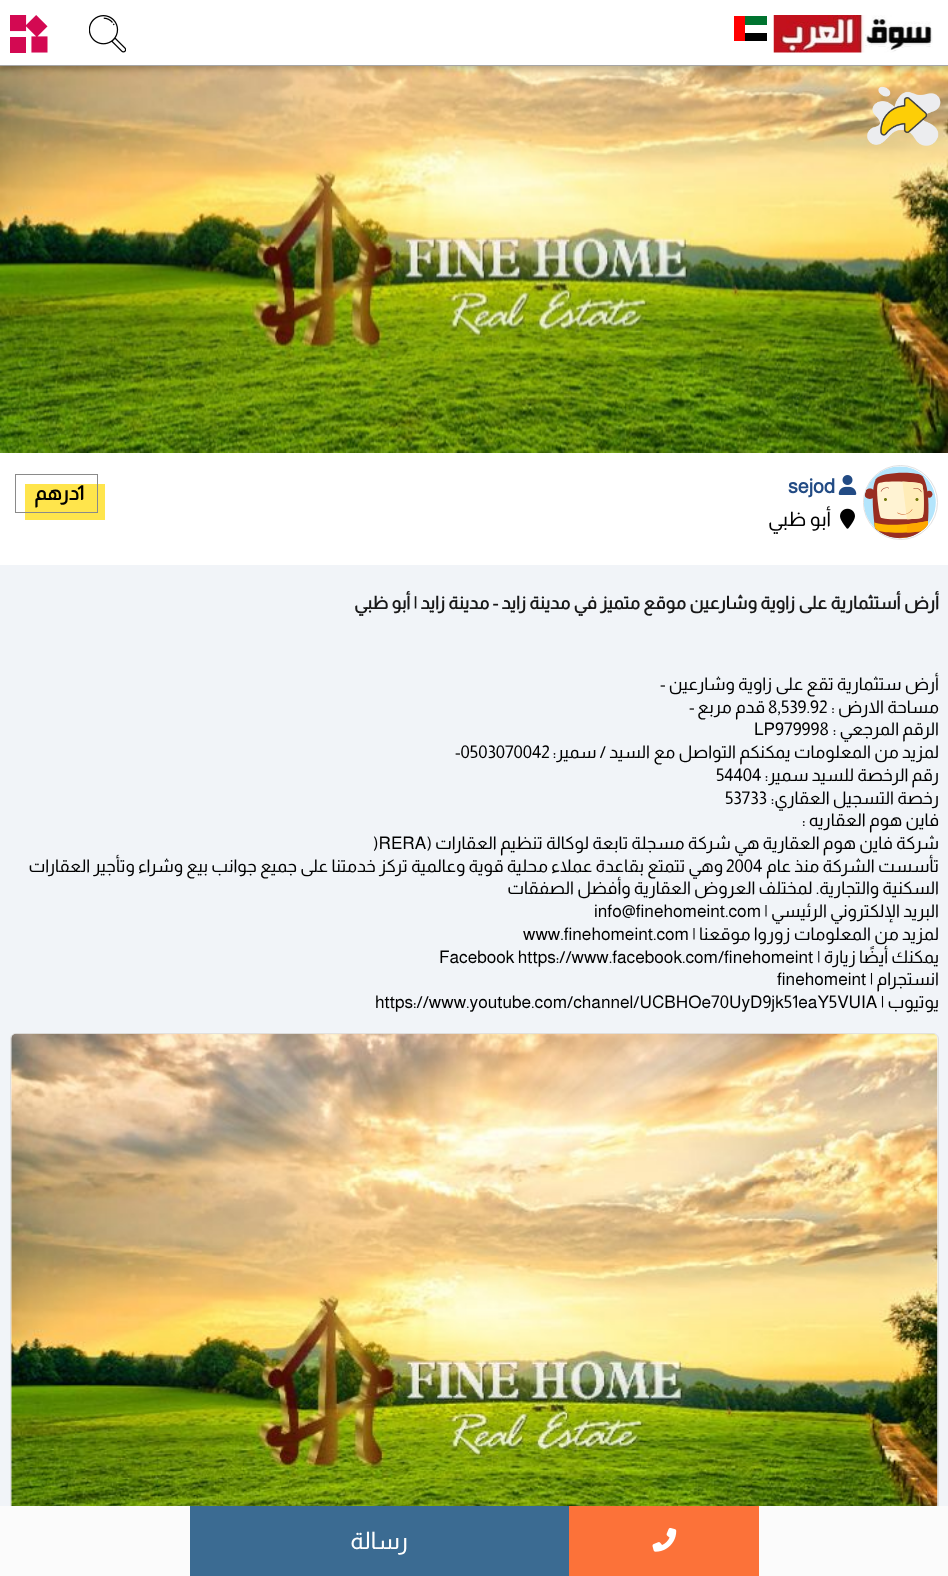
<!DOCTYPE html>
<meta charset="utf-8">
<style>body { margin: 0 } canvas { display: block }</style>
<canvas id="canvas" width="948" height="1576"></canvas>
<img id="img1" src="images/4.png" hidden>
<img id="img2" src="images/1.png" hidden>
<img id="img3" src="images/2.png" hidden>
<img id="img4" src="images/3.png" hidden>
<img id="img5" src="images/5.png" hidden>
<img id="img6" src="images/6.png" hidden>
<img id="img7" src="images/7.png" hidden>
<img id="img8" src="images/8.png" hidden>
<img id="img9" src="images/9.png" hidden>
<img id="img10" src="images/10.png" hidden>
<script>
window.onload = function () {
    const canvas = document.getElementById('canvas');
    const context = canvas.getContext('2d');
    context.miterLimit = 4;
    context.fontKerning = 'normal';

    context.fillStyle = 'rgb(255, 255, 255)';
    context.fillRect(0, 0, 948, 1576);
    context.drawImage(document.getElementById('img1'), 0, 66, 948, 387);
    context.fillStyle = 'rgba(0, 0, 0, 0.26)';
    context.filter = 'blur(3px)';
    context.beginPath();
    context.rect(0, 3, 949, 66);
    context.fill();
    context.filter = 'none';
    context.fillStyle = 'rgb(255, 255, 255)';
    context.fillRect(0, 0, 948, 65);
    context.fillStyle = 'rgb(166, 166, 166)';
    context.fillRect(0, 65, 948, 1);
    context.drawImage(document.getElementById('img2'), 773, 15, 160, 38);
    context.fillStyle = 'rgb(0, 115, 47)';
    context.fillRect(745, 16, 22, 9);
    context.fillStyle = 'rgb(255, 0, 0)';
    context.fillRect(734, 16, 11, 25);
    context.fillStyle = 'rgb(0, 0, 0)';
    context.fillRect(745, 33, 22, 8);
    context.drawImage(document.getElementById('img3'), 89, 15, 37, 38);
    context.drawImage(document.getElementById('img4'), 10, 15, 38, 38);
    context.drawImage(document.getElementById('img5'), 867, 86, 74, 60);
    context.beginPath();
    context.arc(900.5, 502.5, 37, 0, 2 * Math.PI);
    context.strokeStyle = 'rgb(224, 224, 224)';
    context.stroke();
    context.drawImage(document.getElementById('img6'), 864, 466, 72, 73);
    context.drawImage(document.getElementById('img7'), 838, 475, 19, 20);
    context.drawImage(document.getElementById('img8'), 840, 508, 15, 21);
    context.fillStyle = 'rgb(255, 229, 76)';
    context.fillRect(25, 484, 80, 36);
    context.strokeStyle = 'rgb(138, 138, 138)';
    context.strokeRect(15.5, 474.5, 82, 38);
    context.fillStyle = 'rgb(241, 244, 248)';
    context.fillRect(0, 565, 948, 941);
    context.beginPath();
    context.roundRect(10.5, 1033.5, 928, 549, 5.5);
    context.strokeStyle = 'rgb(224, 224, 224)';
    context.stroke();
    context.drawImage(document.getElementById('img9'), 11, 1033, 927, 473);
    context.fillStyle = 'rgb(251, 251, 251)';
    context.fillRect(0, 1506, 948, 70);
    context.fillStyle = 'rgb(252, 114, 57)';
    context.fillRect(569, 1506, 190, 70);
    context.drawImage(document.getElementById('img10'), 652, 1528, 25, 24);
    context.fillStyle = 'rgb(59, 107, 146)';
    context.fillRect(190, 1506, 379, 70);
    context.font = 'bold 20px Almarai';
    context.fillStyle = 'rgb(34, 75, 132)';
    context.fillText('sejod', 788, 493);
    context.direction = 'rtl';
    context.font = '20px Almarai';
    context.fillStyle = 'rgb(0, 0, 0)';
    context.fillText('أبو ظبي', 831, 526);
    context.letterSpacing = '1px';
    context.direction = 'ltr';
    context.font = 'bold 20px Almarai';
    context.fillText('1', 77, 500);
    context.direction = 'rtl';
    context.fillText('درهم', 79, 500);
    context.letterSpacing = '0px';
    context.font = 'bold 17.9px Almarai';
    context.fillStyle = 'rgb(24, 24, 24)';
    context.fillText('أرض أستثمارية', 939, 609);
    context.fillText('على زاوية وشارعين موقع متميز في مدينة زايد - مدينة زايد | أبو ظبي', 827, 609);
    context.font = '17.5px Almarai';
    context.fillStyle = 'rgb(0, 0, 0)';
    context.fillText('أرض ستثمارية تقع على زاوية وشارعين', 939, 690);
    context.direction = 'ltr';
    context.fillText('-', 660, 690);
    context.direction = 'rtl';
    context.fillText('مساحة الارض :', 939, 713);
    context.direction = 'ltr';
    context.fillText('8,539.92', 768, 713);
    context.direction = 'rtl';
    context.fillText('قدم مربع', 765, 713);
    context.direction = 'ltr';
    context.fillText('-', 689, 713);
    context.direction = 'rtl';
    context.fillText('الرقم المرجعي :', 939, 735);
    context.direction = 'ltr';
    context.fillText('LP979998', 754, 735);
    context.direction = 'rtl';
    context.fillText('لمزيد من المعلومات يمكنكم التواصل مع', 939, 758);
    context.fillText('السيد / سمير:', 650, 758);
    context.direction = 'ltr';
    context.fillText('-0503070042', 455, 758);
    context.direction = 'rtl';
    context.fillText('رقم الرخصة للسيد سمير:', 939, 781);
    context.direction = 'ltr';
    context.fillText('54404', 716, 781);
    context.direction = 'rtl';
    context.fillText('رخصة التسجيل العقاري:', 939, 804);
    context.direction = 'ltr';
    context.fillText('53733', 725, 804);
    context.direction = 'rtl';
    context.fillText('فاين هوم العقاريه :', 939, 826);
    context.fillText('شركة فاين هوم العقارية هي شركة مسجلة تابعة لوكالة تنظيم العقارات (', 939, 849);
    context.direction = 'ltr';
    context.fillText(')RERA', 373, 849);
    context.direction = 'rtl';
    context.fillText('تأسست الشركة منذ عام', 939, 872);
    context.direction = 'ltr';
    context.fillText('2004', 726, 872);
    context.direction = 'rtl';
    context.fillText('وهي تتمتع بقاعدة عملاء محلية قوية وعالمية تركز خدمتنا على جميع جوانب بيع وشراء وتأجير العقارات', 723, 872);
    context.fillText('السكنية والتجارية. لمختلف العروض العقارية وأفضل الصفقات', 939, 894);
    context.fillText('البريد الإلكتروني الرئيسي |', 939, 917);
    context.direction = 'ltr';
    context.fillText('info@finehomeint.com', 594, 917);
    context.direction = 'rtl';
    context.fillText('لمزيد من المعلومات زوروا موقعنا |', 939, 940);
    context.direction = 'ltr';
    context.fillText('www.finehomeint.com', 523, 940);
    context.direction = 'rtl';
    context.fillText('يمكنك أيضًا زيارة |', 939, 963);
    context.direction = 'ltr';
    context.fillText('Facebook https://www.facebook.com/finehomeint', 439, 963);
    context.direction = 'rtl';
    context.fillText('انستجرام |', 939, 985);
    context.direction = 'ltr';
    context.fillText('finehomeint', 777, 985);
    context.direction = 'rtl';
    context.fillText('يوتيوب |', 939, 1008);
    context.direction = 'ltr';
    context.fillText('https://www.youtube.com/channel/UCBHOe70UyD9jk51eaY5VUIA', 375, 1008);
    context.direction = 'rtl';
    context.font = '24px Almarai';
    context.fillStyle = 'rgb(255, 255, 255)';
    context.fillText('رسالة', 408, 1549);
};
</script>
